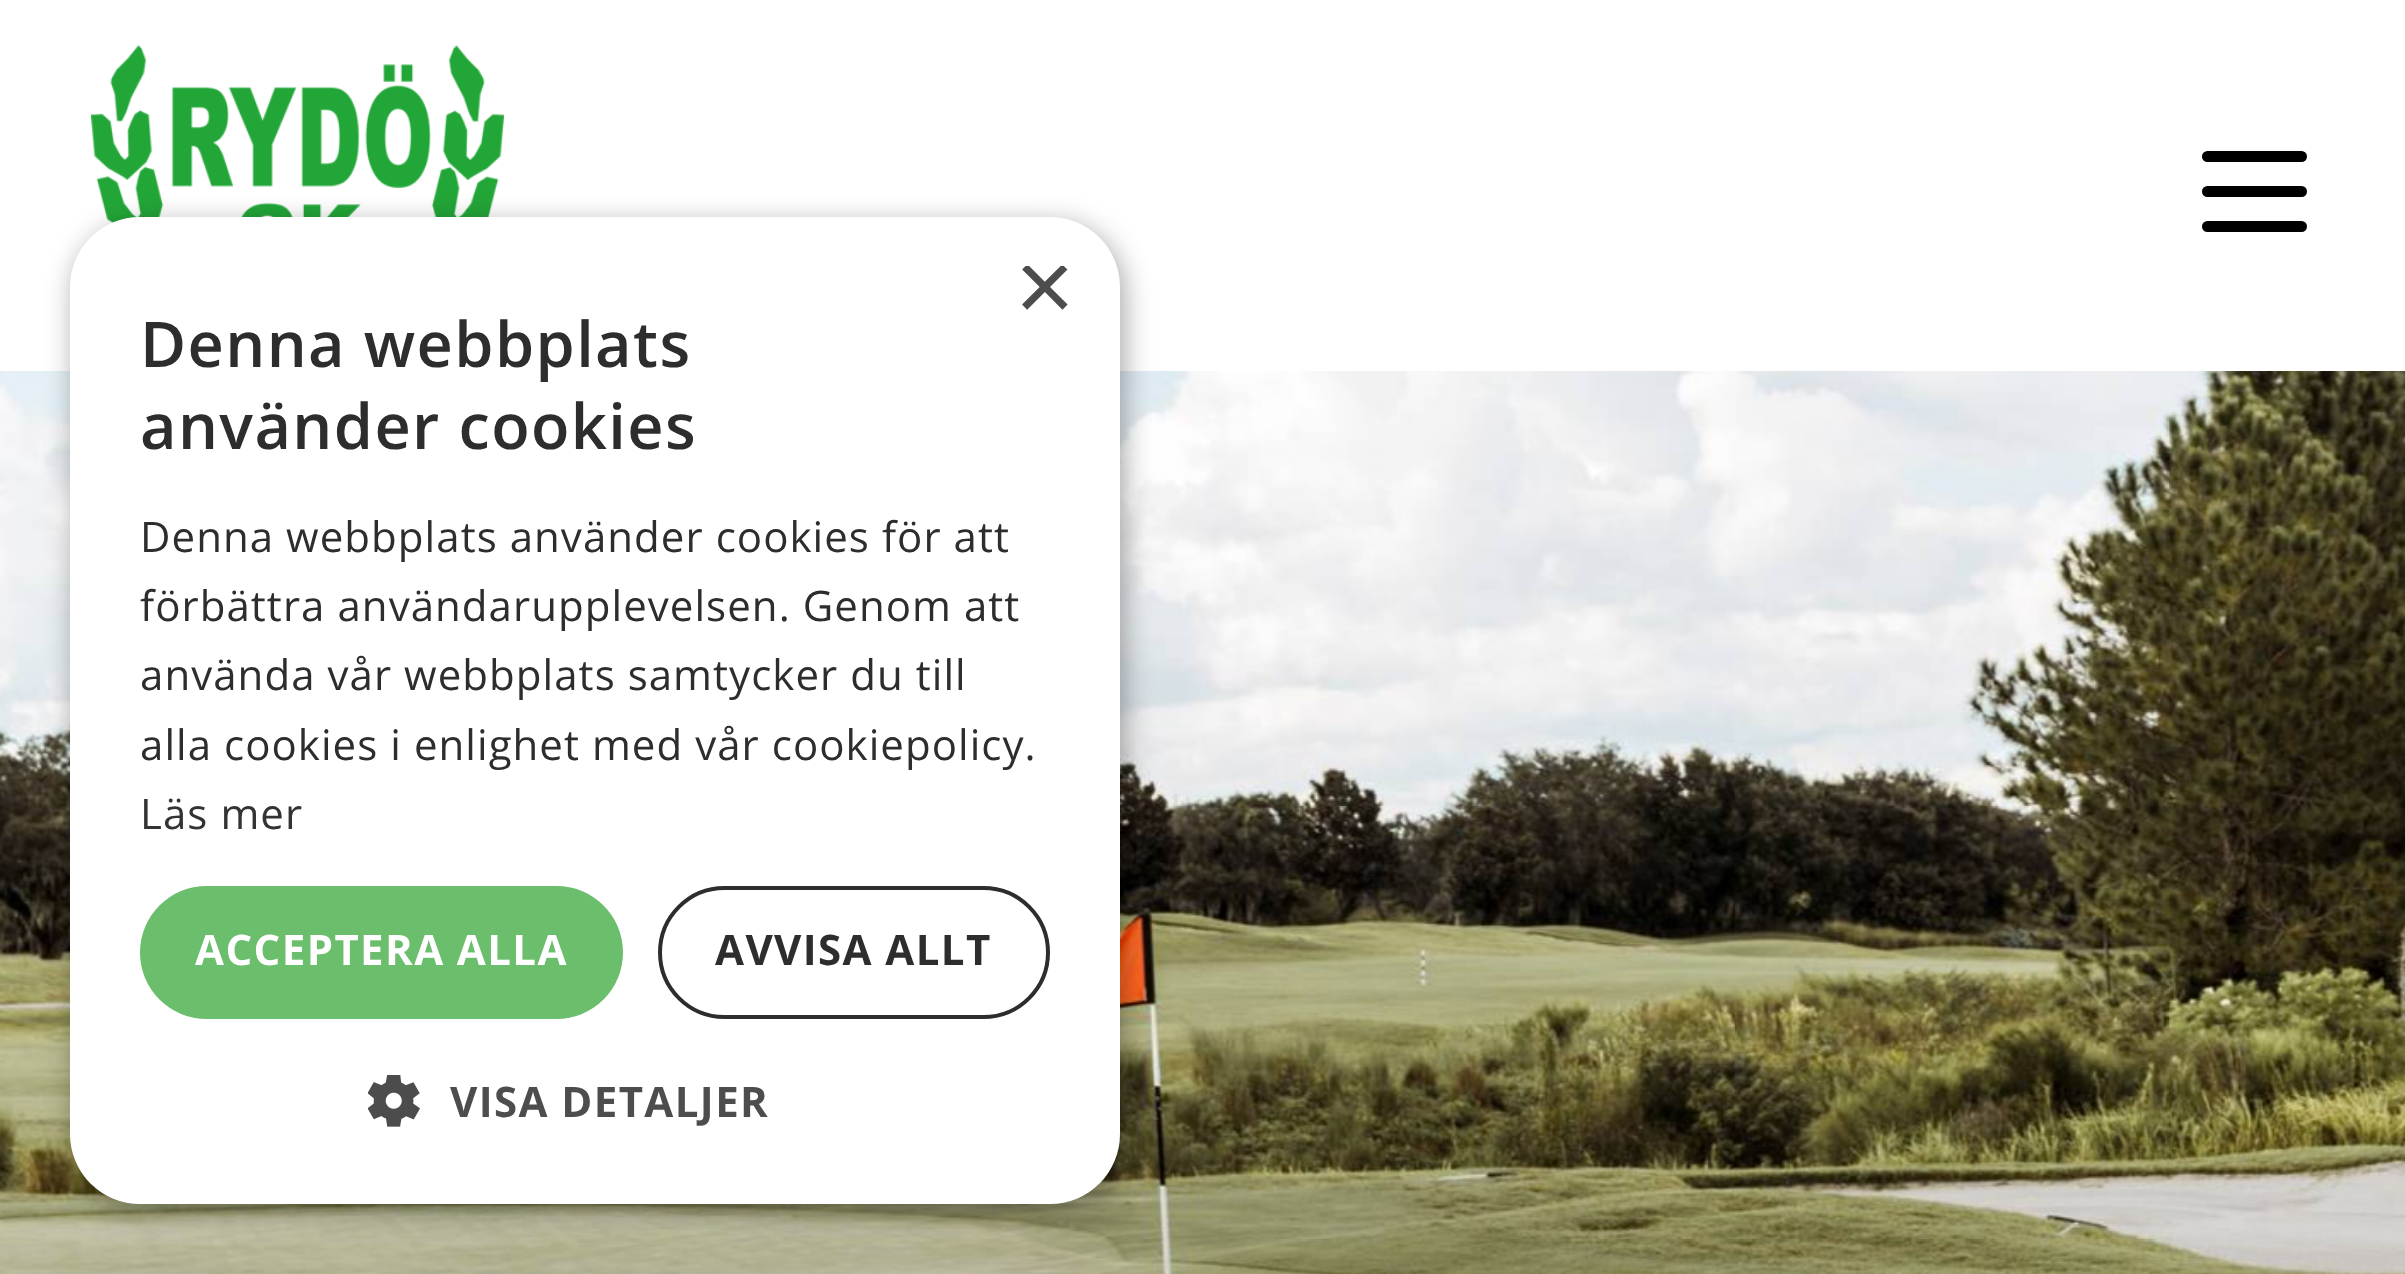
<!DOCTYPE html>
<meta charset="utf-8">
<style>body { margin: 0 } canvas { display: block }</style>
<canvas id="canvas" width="2405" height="1274"></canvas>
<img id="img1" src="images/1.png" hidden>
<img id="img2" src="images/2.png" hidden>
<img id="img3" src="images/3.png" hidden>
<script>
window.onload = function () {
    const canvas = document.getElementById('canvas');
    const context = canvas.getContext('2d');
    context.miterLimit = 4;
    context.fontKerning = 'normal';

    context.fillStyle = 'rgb(255, 255, 255)';
    context.fillRect(0, 0, 2405, 1274);
    context.drawImage(document.getElementById('img1'), 91, 45, 413, 178);
    context.fillStyle = 'rgb(0, 0, 0)';
    context.beginPath();
    context.roundRect(2202, 151, 105, 11, 5.5);
    context.fill();
    context.beginPath();
    context.roundRect(2202, 186, 105, 11, 5.5);
    context.fill();
    context.beginPath();
    context.roundRect(2202, 221, 105, 11, 5.5);
    context.fill();
    context.drawImage(document.getElementById('img2'), 0, 371, 2405, 903);
    context.fillStyle = 'rgba(0, 0, 0, 0.35)';
    context.filter = 'blur(14px)';
    context.beginPath();
    context.roundRect(74, 224, 1050, 987, 70);
    context.fill();
    context.filter = 'none';
    context.fillStyle = 'rgb(255, 255, 255)';
    context.beginPath();
    context.roundRect(70, 217, 1050, 987, 70);
    context.fill();
    context.fillStyle = 'rgb(107, 190, 107)';
    context.beginPath();
    context.roundRect(140, 886, 483, 133, 66.5);
    context.fill();
    context.beginPath();
    context.roundRect(660, 888, 388, 129, 64.5);
    context.strokeStyle = 'rgb(45, 45, 45)';
    context.lineWidth = 4;
    context.stroke();
    context.drawImage(document.getElementById('img3'), 368, 1075, 52, 52);
    context.save();
    context.beginPath();
    context.rect(1015, 266, 53, 53);
    context.clip();
    context.font = '102px Liberation Sans';
    context.fillStyle = 'rgb(77, 77, 77)';
    context.fillText('×', 1015, 321);
    context.restore();
    context.letterSpacing = '1.4px';
    context.font = '600 63px Open Sans';
    context.fillStyle = 'rgb(45, 45, 45)';
    context.fillText('Denna webbplats', 140, 367);
    context.fillText('använder cookies', 140, 449);
    context.letterSpacing = '1.05px';
    context.font = '42px Open Sans';
    context.fillText('Denna webbplats använder cookies för att', 140, 552);
    context.fillText('förbättra användarupplevelsen. Genom att', 140, 621);
    context.fillText('använda vår webbplats samtycker du till', 140, 690);
    context.fillText('alla cookies i enlighet med vår cookiepolicy.', 140, 760);
    context.fillStyle = 'rgb(51, 51, 51)';
    context.fillText('Läs mer', 140, 829);
    context.letterSpacing = '1.4px';
    context.font = 'bold 42px Open Sans';
    context.fillStyle = 'rgb(255, 255, 255)';
    context.fillText('ACCEPTERA ALLA', 195, 965);
    context.fillStyle = 'rgb(45, 45, 45)';
    context.fillText('AVVISA ALLT', 715, 965);
    context.fillStyle = 'rgb(77, 77, 77)';
    context.fillText('VISA DETALJER', 450, 1117);
};
</script>
